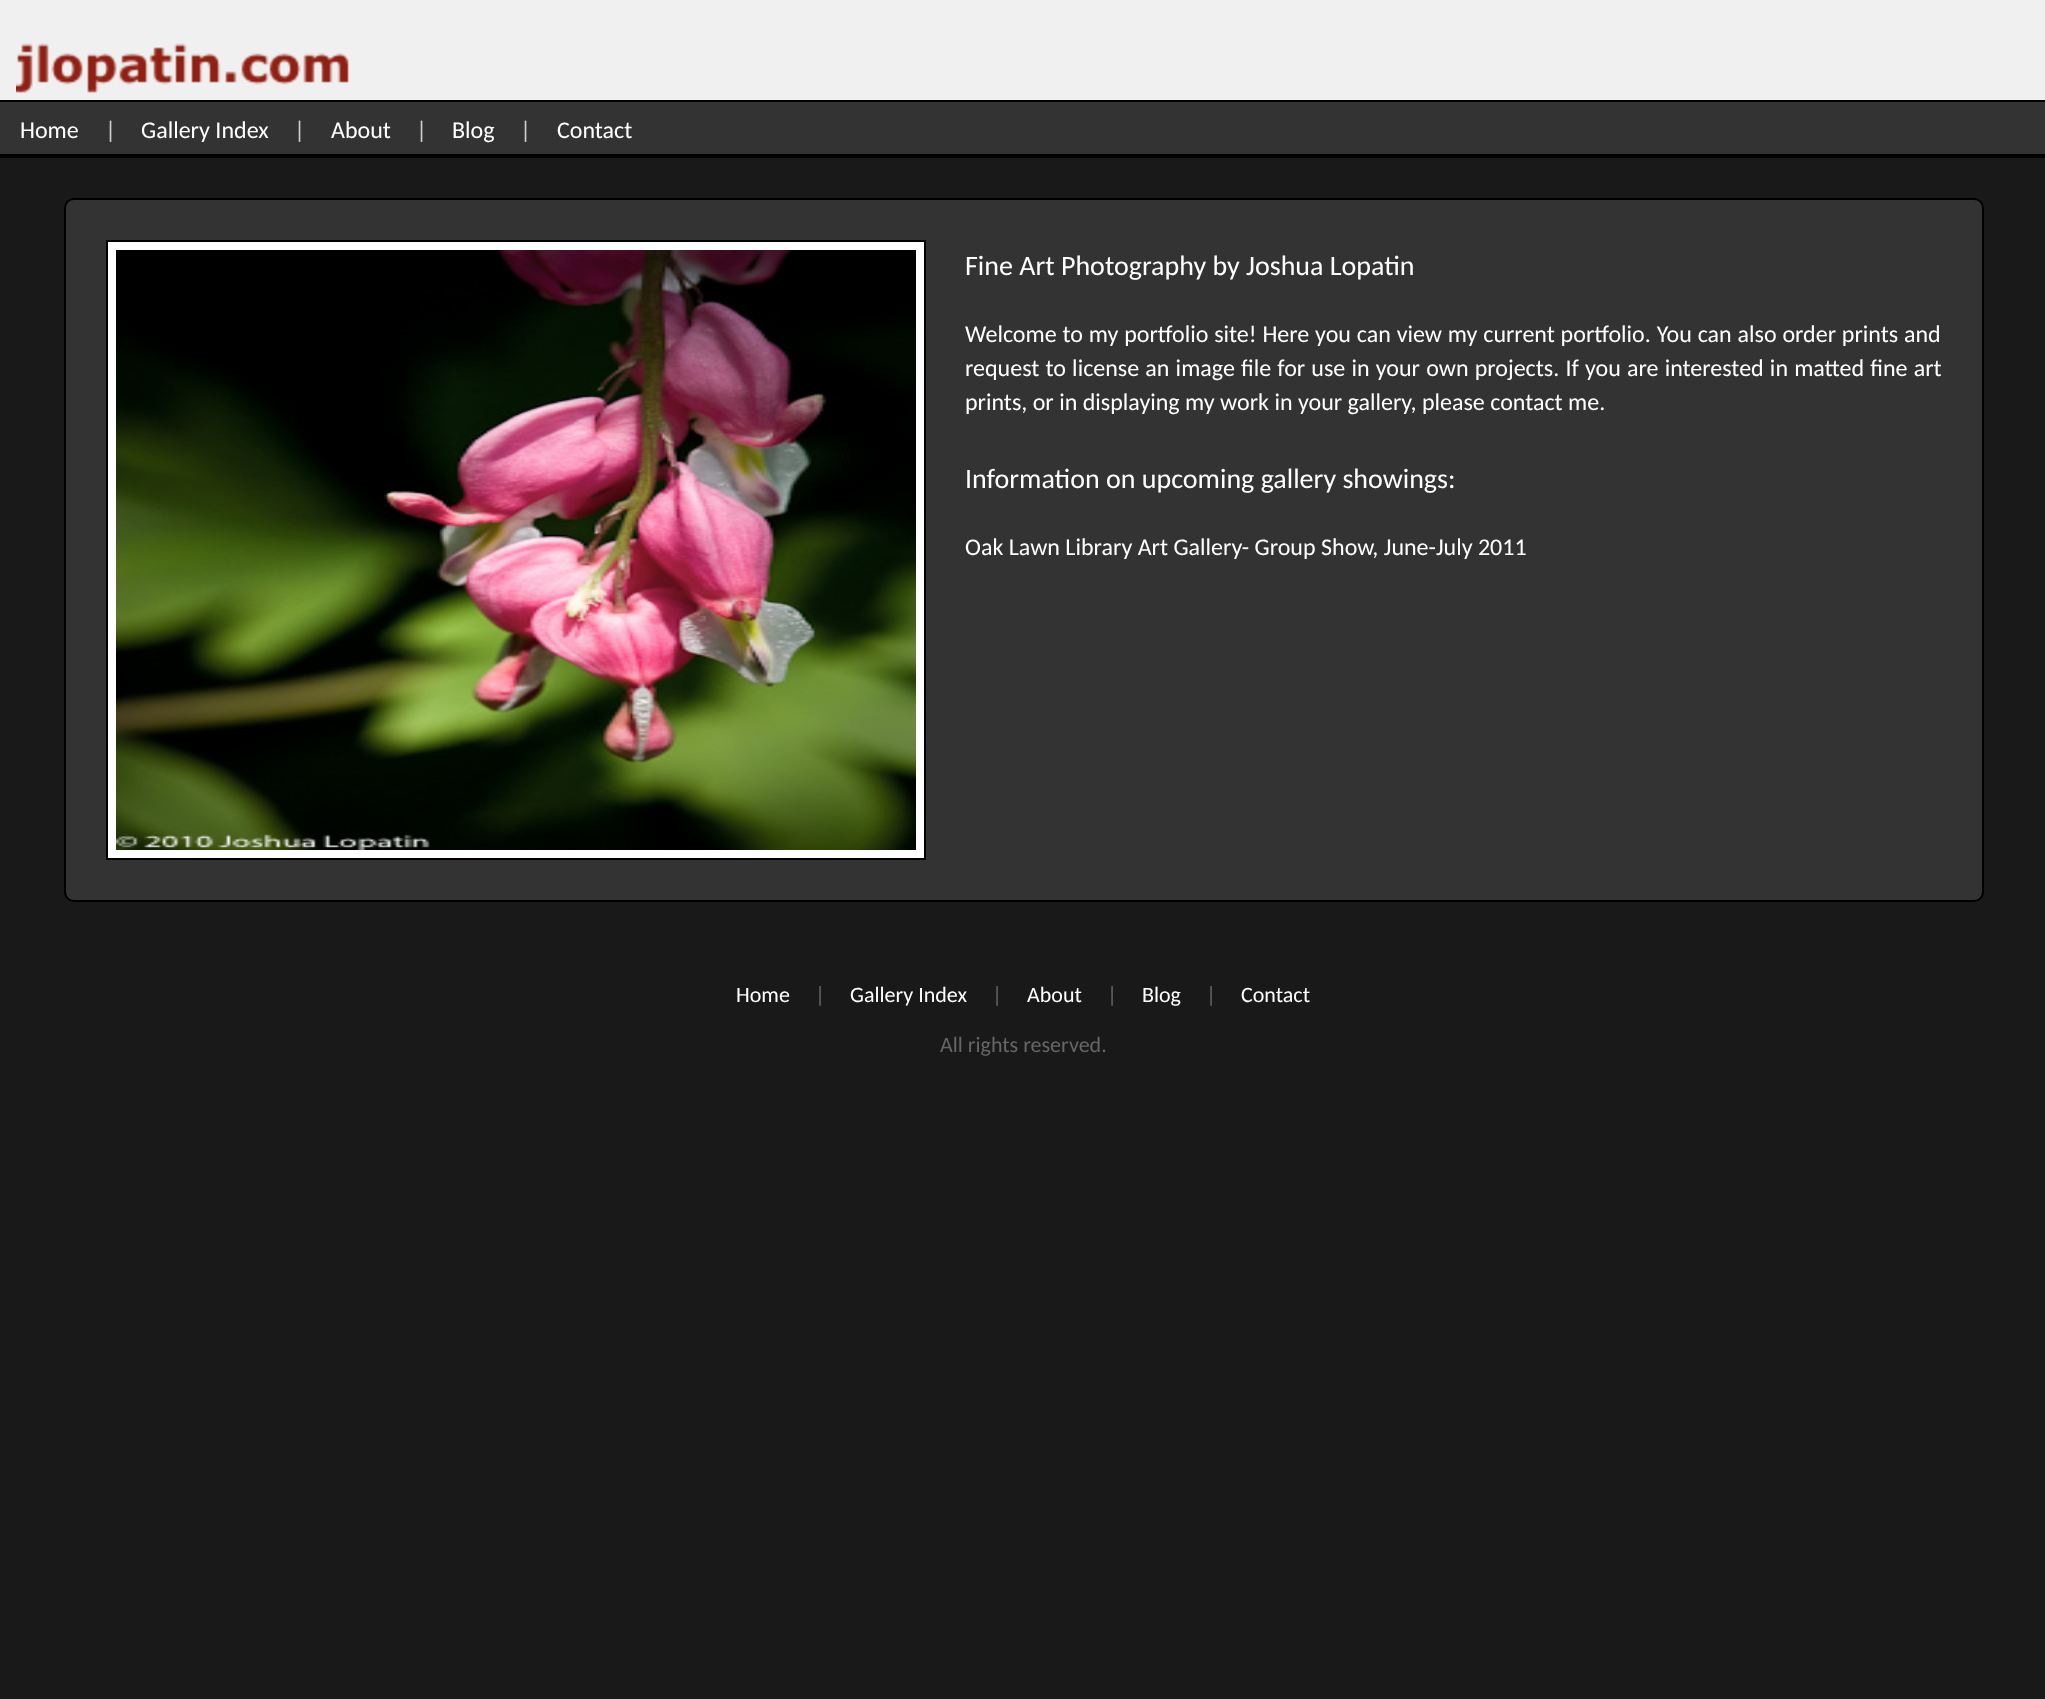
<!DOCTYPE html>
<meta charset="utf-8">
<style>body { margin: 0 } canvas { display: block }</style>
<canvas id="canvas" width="2045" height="1699"></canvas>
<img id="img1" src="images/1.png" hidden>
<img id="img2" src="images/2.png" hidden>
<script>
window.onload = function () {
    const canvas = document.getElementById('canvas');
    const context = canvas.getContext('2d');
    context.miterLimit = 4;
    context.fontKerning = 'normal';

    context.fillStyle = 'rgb(25, 25, 25)';
    context.fillRect(0, 0, 2045, 1699);
    context.fillStyle = 'rgb(240, 240, 240)';
    context.fillRect(0, 0, 2045, 100);
    context.drawImage(document.getElementById('img1'), 16, 43, 333, 50);
    context.fillStyle = 'rgb(51, 51, 51)';
    context.fillRect(0, 102, 2045, 52);
    context.fillStyle = 'rgb(0, 0, 0)';
    context.fillRect(0, 100, 2045, 2);
    context.fillRect(0, 154, 2045, 4);
    context.fillStyle = 'rgb(51, 51, 51)';
    context.beginPath();
    context.roundRect(65, 199, 1918, 702, 9);
    context.fill();
    context.strokeStyle = 'rgb(0, 0, 0)';
    context.lineWidth = 2;
    context.stroke();
    context.fillStyle = 'rgb(255, 255, 255)';
    context.beginPath();
    context.rect(107, 241, 818, 618);
    context.fill();
    context.stroke();
    context.drawImage(document.getElementById('img2'), 116, 250, 800, 600);
    context.font = '24px Carlito';
    context.fillText('Home', 20, 138);
    context.fillStyle = 'rgb(204, 204, 204)';
    context.fillText('|', 105, 138);
    context.fillStyle = 'rgb(255, 255, 255)';
    context.fillText('Gallery Index', 141, 138);
    context.fillStyle = 'rgb(204, 204, 204)';
    context.fillText('|', 294, 138);
    context.fillStyle = 'rgb(255, 255, 255)';
    context.fillText('About', 331, 138);
    context.fillStyle = 'rgb(204, 204, 204)';
    context.fillText('|', 416, 138);
    context.fillStyle = 'rgb(255, 255, 255)';
    context.fillText('Blog', 452, 138);
    context.fillStyle = 'rgb(204, 204, 204)';
    context.fillText('|', 520, 138);
    context.fillStyle = 'rgb(255, 255, 255)';
    context.fillText('Contact', 557, 138);
    context.font = '28px Carlito';
    context.fillText('Fine Art Photography by Joshua Lopatin', 965, 275);
    context.wordSpacing = '0.4px';
    context.font = '24px Carlito';
    context.fillText('Welcome to my portfolio site! Here you can view my current portfolio. You can also order prints and', 965, 342);
    context.wordSpacing = '0.75px';
    context.fillText('request to license an image file for use in your own projects. If you are interested in matted fine art', 965, 376);
    context.wordSpacing = '0px';
    context.fillText('prints, or in displaying my work in your gallery, please contact me.', 965, 410);
    context.font = '28px Carlito';
    context.fillText('Information on upcoming gallery showings:', 965, 488);
    context.font = '24px Carlito';
    context.fillText('Oak Lawn Library Art Gallery- Group Show, June-July 2011', 965, 555);
    context.font = '22px Carlito';
    context.fillText('Home', 736, 1002);
    context.fillStyle = 'rgb(102, 102, 102)';
    context.fillText('|', 815, 1002);
    context.fillStyle = 'rgb(255, 255, 255)';
    context.fillText('Gallery Index', 850, 1002);
    context.fillStyle = 'rgb(102, 102, 102)';
    context.fillText('|', 992, 1002);
    context.fillStyle = 'rgb(255, 255, 255)';
    context.fillText('About', 1027, 1002);
    context.fillStyle = 'rgb(102, 102, 102)';
    context.fillText('|', 1107, 1002);
    context.fillStyle = 'rgb(255, 255, 255)';
    context.fillText('Blog', 1142, 1002);
    context.fillStyle = 'rgb(102, 102, 102)';
    context.fillText('|', 1206, 1002);
    context.fillStyle = 'rgb(255, 255, 255)';
    context.fillText('Contact', 1241, 1002);
    context.fillStyle = 'rgb(102, 102, 102)';
    context.fillText('All rights reserved.', 940, 1052);
};
</script>
